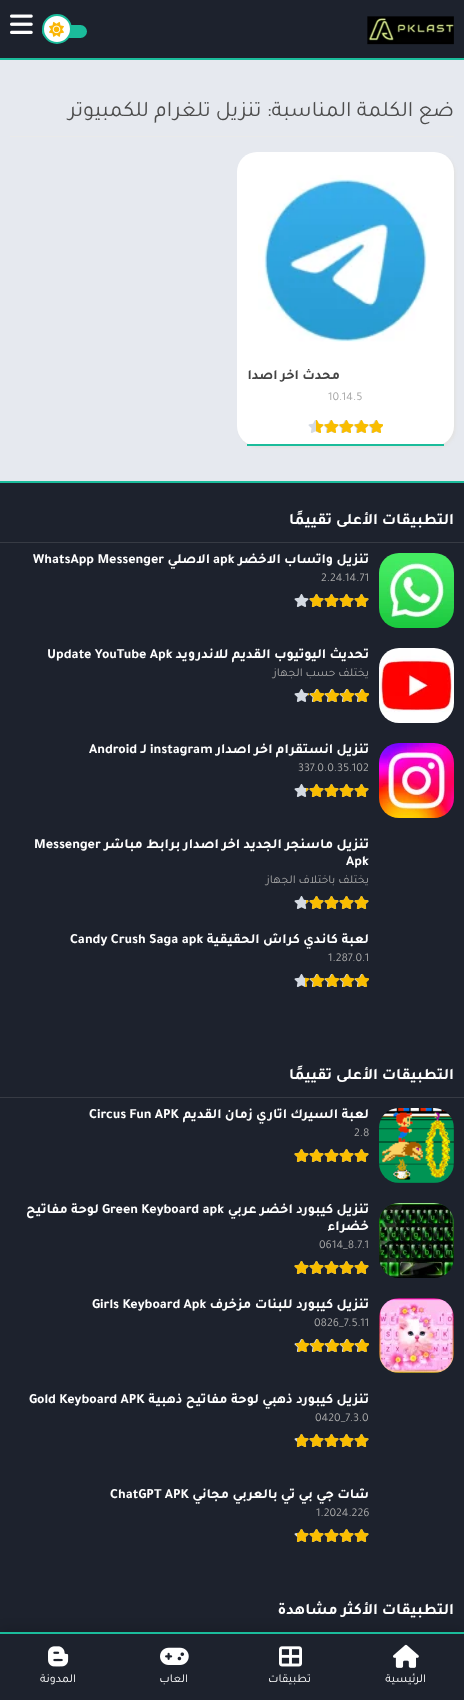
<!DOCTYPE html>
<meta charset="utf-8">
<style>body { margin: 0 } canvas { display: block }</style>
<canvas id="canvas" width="464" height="1700"></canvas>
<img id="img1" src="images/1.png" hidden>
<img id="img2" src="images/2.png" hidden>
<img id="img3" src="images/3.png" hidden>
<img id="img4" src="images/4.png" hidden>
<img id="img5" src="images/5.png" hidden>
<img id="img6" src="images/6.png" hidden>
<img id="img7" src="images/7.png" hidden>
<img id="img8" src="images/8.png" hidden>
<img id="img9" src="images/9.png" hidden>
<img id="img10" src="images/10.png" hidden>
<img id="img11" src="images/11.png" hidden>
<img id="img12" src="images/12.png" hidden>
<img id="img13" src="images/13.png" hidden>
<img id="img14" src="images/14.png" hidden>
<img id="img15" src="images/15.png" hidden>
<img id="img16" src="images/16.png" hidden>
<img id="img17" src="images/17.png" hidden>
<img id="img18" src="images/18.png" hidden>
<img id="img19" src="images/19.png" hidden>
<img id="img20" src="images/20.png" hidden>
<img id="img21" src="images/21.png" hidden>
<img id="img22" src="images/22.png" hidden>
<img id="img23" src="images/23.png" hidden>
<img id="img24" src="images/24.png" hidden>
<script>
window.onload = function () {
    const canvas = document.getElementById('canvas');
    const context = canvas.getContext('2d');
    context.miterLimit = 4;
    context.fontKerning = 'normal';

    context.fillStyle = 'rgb(230, 233, 239)';
    context.fillRect(0, 0, 464, 1700);
    context.fillStyle = 'rgb(29, 34, 45)';
    context.fillRect(0, 0, 464, 58);
    context.fillStyle = 'rgb(27, 188, 155)';
    context.fillRect(0, 58, 464, 2);
    context.drawImage(document.getElementById('img1'), 367, 16, 87, 29);
    context.beginPath();
    context.roundRect(42, 25, 45, 13, 6.5);
    context.fill();
    context.fillStyle = 'rgb(255, 255, 255)';
    context.beginPath();
    context.arc(57, 29, 14, 0, 2 * Math.PI);
    context.fill();
    context.strokeStyle = 'rgb(27, 188, 155)';
    context.lineWidth = 2;
    context.stroke();
    context.drawImage(document.getElementById('img2'), 49, 21, 15, 16);
    context.drawImage(document.getElementById('img3'), 10, 14, 23, 20);
    context.fillStyle = 'rgb(234, 234, 234)';
    context.fillRect(10, 136, 444, 1);
    context.fillStyle = 'rgb(227, 227, 227)';
    context.filter = 'blur(1px)';
    context.beginPath();
    context.roundRect(239, 154, 217, 294, 20);
    context.fill();
    context.filter = 'none';
    context.fillStyle = 'rgb(255, 255, 255)';
    context.beginPath();
    context.roundRect(237, 152, 217, 294, 20);
    context.fill();
    context.fillStyle = 'rgb(27, 188, 155)';
    context.fillRect(247, 444, 197, 2);
    context.drawImage(document.getElementById('img4'), 258, 175, 169, 167);
    context.drawImage(document.getElementById('img5'), 308, 420, 75, 13);
    context.drawImage(document.getElementById('img6'), 316, 420, 67, 13);
    context.fillStyle = 'rgb(29, 34, 45)';
    context.fillRect(0, 483, 464, 1149);
    context.fillStyle = 'rgb(27, 188, 155)';
    context.fillRect(0, 481, 464, 2);
    context.fillStyle = 'rgb(55, 59, 68)';
    context.fillRect(0, 542, 464, 1);
    context.drawImage(document.getElementById('img7'), 379, 553, 75, 75);
    context.drawImage(document.getElementById('img8'), 294, 594, 75, 13);
    context.drawImage(document.getElementById('img9'), 309, 594, 60, 13);
    context.drawImage(document.getElementById('img10'), 379, 648, 75, 75);
    context.drawImage(document.getElementById('img8'), 294, 689, 75, 13);
    context.drawImage(document.getElementById('img11'), 308, 689, 61, 13);
    context.drawImage(document.getElementById('img12'), 379, 743, 75, 75);
    context.drawImage(document.getElementById('img8'), 294, 784, 75, 13);
    context.drawImage(document.getElementById('img13'), 306, 784, 63, 13);
    context.drawImage(document.getElementById('img8'), 294, 896, 75, 13);
    context.drawImage(document.getElementById('img13'), 306, 896, 63, 13);
    context.drawImage(document.getElementById('img8'), 294, 974, 75, 13);
    context.drawImage(document.getElementById('img14'), 305, 974, 64, 13);
    context.fillRect(0, 1097, 464, 1);
    context.drawImage(document.getElementById('img15'), 379, 1108, 75, 75);
    context.drawImage(document.getElementById('img8'), 294, 1149, 75, 13);
    context.drawImage(document.getElementById('img16'), 294, 1149, 75, 13);
    context.drawImage(document.getElementById('img17'), 379, 1203, 75, 75);
    context.drawImage(document.getElementById('img8'), 294, 1261, 75, 13);
    context.drawImage(document.getElementById('img16'), 294, 1261, 75, 13);
    context.drawImage(document.getElementById('img18'), 379, 1298, 75, 75);
    context.drawImage(document.getElementById('img8'), 294, 1339, 75, 13);
    context.drawImage(document.getElementById('img19'), 296, 1339, 73, 13);
    context.drawImage(document.getElementById('img8'), 294, 1434, 75, 13);
    context.drawImage(document.getElementById('img20'), 297, 1434, 72, 13);
    context.drawImage(document.getElementById('img8'), 294, 1529, 75, 13);
    context.drawImage(document.getElementById('img20'), 297, 1529, 72, 13);
    context.fillStyle = 'rgba(0, 0, 0, 0.1)';
    context.filter = 'blur(5px)';
    context.beginPath();
    context.rect(0, 1627, 464, 68);
    context.fill();
    context.filter = 'none';
    context.fillStyle = 'rgb(29, 34, 45)';
    context.fillRect(0, 1634, 464, 66);
    context.fillStyle = 'rgb(27, 188, 155)';
    context.fillRect(0, 1632, 464, 2);
    context.drawImage(document.getElementById('img21'), 393, 1644, 26, 24);
    context.drawImage(document.getElementById('img22'), 279, 1646, 23, 21);
    context.drawImage(document.getElementById('img23'), 160, 1647, 29, 18);
    context.drawImage(document.getElementById('img24'), 48, 1646, 21, 21);
    context.direction = 'rtl';
    context.font = '22px Tajawal';
    context.fillStyle = 'rgb(76, 76, 76)';
    context.fillText('ضع الكلمة المناسبة: تنزيل تلغرام للكمبيوتر', 454, 116);
    context.save();
    context.beginPath();
    context.rect(247, 369, 197, 20);
    context.clip();
    context.font = 'bold 14px Tajawal';
    context.fillStyle = 'rgb(68, 68, 68)';
    context.fillText('محدث اخر اصدار', 340, 379);
    context.restore();
    context.direction = 'ltr';
    context.font = '12px Tajawal';
    context.fillStyle = 'rgb(167, 167, 167)';
    context.fillText('10.14.5', 328, 400);
    context.direction = 'rtl';
    context.font = 'bold 16px Tajawal';
    context.fillStyle = 'rgb(255, 255, 255)';
    context.fillText('التطبيقات الأعلى تقييمًا', 454, 524);
    context.font = 'bold 14px Tajawal';
    context.fillText('تنزيل واتساب الاخضر', 369, 563);
    context.direction = 'ltr';
    context.fillText('apk', 213, 563);
    context.direction = 'rtl';
    context.fillText('الاصلي', 210, 563);
    context.direction = 'ltr';
    context.fillText('WhatsApp Messenger', 33, 563);
    context.font = '12px Tajawal';
    context.fillStyle = 'rgb(167, 167, 167)';
    context.fillText('2.24.14.71', 321, 581);
    context.direction = 'rtl';
    context.font = 'bold 14px Tajawal';
    context.fillStyle = 'rgb(255, 255, 255)';
    context.fillText('تحديث اليوتيوب القديم للاندرويد', 369, 658);
    context.direction = 'ltr';
    context.fillText('Update YouTube Apk', 47, 658);
    context.direction = 'rtl';
    context.font = '12px Tajawal';
    context.fillStyle = 'rgb(167, 167, 167)';
    context.fillText('يختلف حسب الجهاز', 369, 676);
    context.font = 'bold 14px Tajawal';
    context.fillStyle = 'rgb(255, 255, 255)';
    context.fillText('تنزيل انستقرام اخر اصدار', 369, 753);
    context.direction = 'ltr';
    context.fillText('instagram', 150, 753);
    context.direction = 'rtl';
    context.fillText('لـ', 147, 753);
    context.direction = 'ltr';
    context.fillText('Android', 89, 753);
    context.font = '12px Tajawal';
    context.fillStyle = 'rgb(167, 167, 167)';
    context.fillText('337.0.0.35.102', 298, 771);
    context.save();
    context.beginPath();
    context.rect(10, 838, 359, 34);
    context.clip();
    context.direction = 'rtl';
    context.font = 'bold 14px Tajawal';
    context.fillStyle = 'rgb(255, 255, 255)';
    context.fillText('تنزيل ماسنجر الجديد اخر اصدار برابط مباشر', 369, 848);
    context.restore();
    context.font = 'bold 14px Tajawal';
    context.fillStyle = 'rgb(255, 255, 255)';
    context.fillText('Messenger', 34, 848);
    context.fillText('Apk', 346, 865);
    context.direction = 'rtl';
    context.font = '12px Tajawal';
    context.fillStyle = 'rgb(167, 167, 167)';
    context.fillText('يختلف باختلاف الجهاز', 369, 883);
    context.save();
    context.beginPath();
    context.rect(10, 933, 359, 17);
    context.clip();
    context.font = 'bold 14px Tajawal';
    context.fillStyle = 'rgb(255, 255, 255)';
    context.fillText('لعبة كاندي كراش الحقيقية', 369, 943);
    context.restore();
    context.direction = 'ltr';
    context.font = 'bold 14px Tajawal';
    context.fillStyle = 'rgb(255, 255, 255)';
    context.fillText('Candy Crush Saga apk', 70, 943);
    context.font = '12px Tajawal';
    context.fillStyle = 'rgb(167, 167, 167)';
    context.fillText('1.287.0.1', 328, 961);
    context.direction = 'rtl';
    context.font = 'bold 16px Tajawal';
    context.fillStyle = 'rgb(255, 255, 255)';
    context.fillText('التطبيقات الأعلى تقييمًا', 454, 1079);
    context.font = 'bold 14px Tajawal';
    context.fillText('لعبة السيرك اتاري زمان القديم', 369, 1118);
    context.direction = 'ltr';
    context.fillText('Circus Fun APK', 89, 1118);
    context.font = '12px Tajawal';
    context.fillStyle = 'rgb(167, 167, 167)';
    context.fillText('2.8', 354, 1136);
    context.direction = 'rtl';
    context.font = 'bold 14px Tajawal';
    context.fillStyle = 'rgb(255, 255, 255)';
    context.fillText('تنزيل كيبورد اخضر عربي', 369, 1213);
    context.direction = 'ltr';
    context.fillText('Green Keyboard apk', 102, 1213);
    context.direction = 'rtl';
    context.fillText('لوحة مفاتيح', 99, 1213);
    context.fillText('خضراء', 369, 1230);
    context.direction = 'ltr';
    context.font = '12px Tajawal';
    context.fillStyle = 'rgb(167, 167, 167)';
    context.fillText('0614_8.7.1', 319, 1248);
    context.direction = 'rtl';
    context.font = 'bold 14px Tajawal';
    context.fillStyle = 'rgb(255, 255, 255)';
    context.fillText('تنزيل كيبورد للبنات مزخرف', 369, 1308);
    context.direction = 'ltr';
    context.fillText('Girls Keyboard Apk', 92, 1308);
    context.font = '12px Tajawal';
    context.fillStyle = 'rgb(167, 167, 167)';
    context.fillText('0826_7.5.11', 314, 1326);
    context.direction = 'rtl';
    context.font = 'bold 14px Tajawal';
    context.fillStyle = 'rgb(255, 255, 255)';
    context.fillText('تنزيل كيبورد ذهبي لوحة مفاتيح ذهبية', 369, 1403);
    context.direction = 'ltr';
    context.fillText('Gold Keyboard APK', 29, 1403);
    context.font = '12px Tajawal';
    context.fillStyle = 'rgb(167, 167, 167)';
    context.fillText('0420_7.3.0', 315, 1421);
    context.save();
    context.beginPath();
    context.rect(10, 1488, 359, 17);
    context.clip();
    context.direction = 'rtl';
    context.font = 'bold 14px Tajawal';
    context.fillStyle = 'rgb(255, 255, 255)';
    context.fillText('شات جي بي تي بالعربي مجاني', 369, 1498);
    context.restore();
    context.font = 'bold 14px Tajawal';
    context.fillStyle = 'rgb(255, 255, 255)';
    context.fillText('ChatGPT APK', 110, 1498);
    context.font = '12px Tajawal';
    context.fillStyle = 'rgb(167, 167, 167)';
    context.fillText('1.2024.226', 316, 1516);
    context.direction = 'rtl';
    context.font = 'bold 16px Tajawal';
    context.fillStyle = 'rgb(255, 255, 255)';
    context.fillText('التطبيقات الأكثر مشاهدة', 454, 1614);
    context.font = '12px Tajawal';
    context.fillText('الرئيسية', 426, 1682);
    context.fillText('تطبيقات', 311, 1682);
    context.fillText('العاب', 188, 1682);
    context.fillText('المدونة', 76, 1682);
};
</script>
